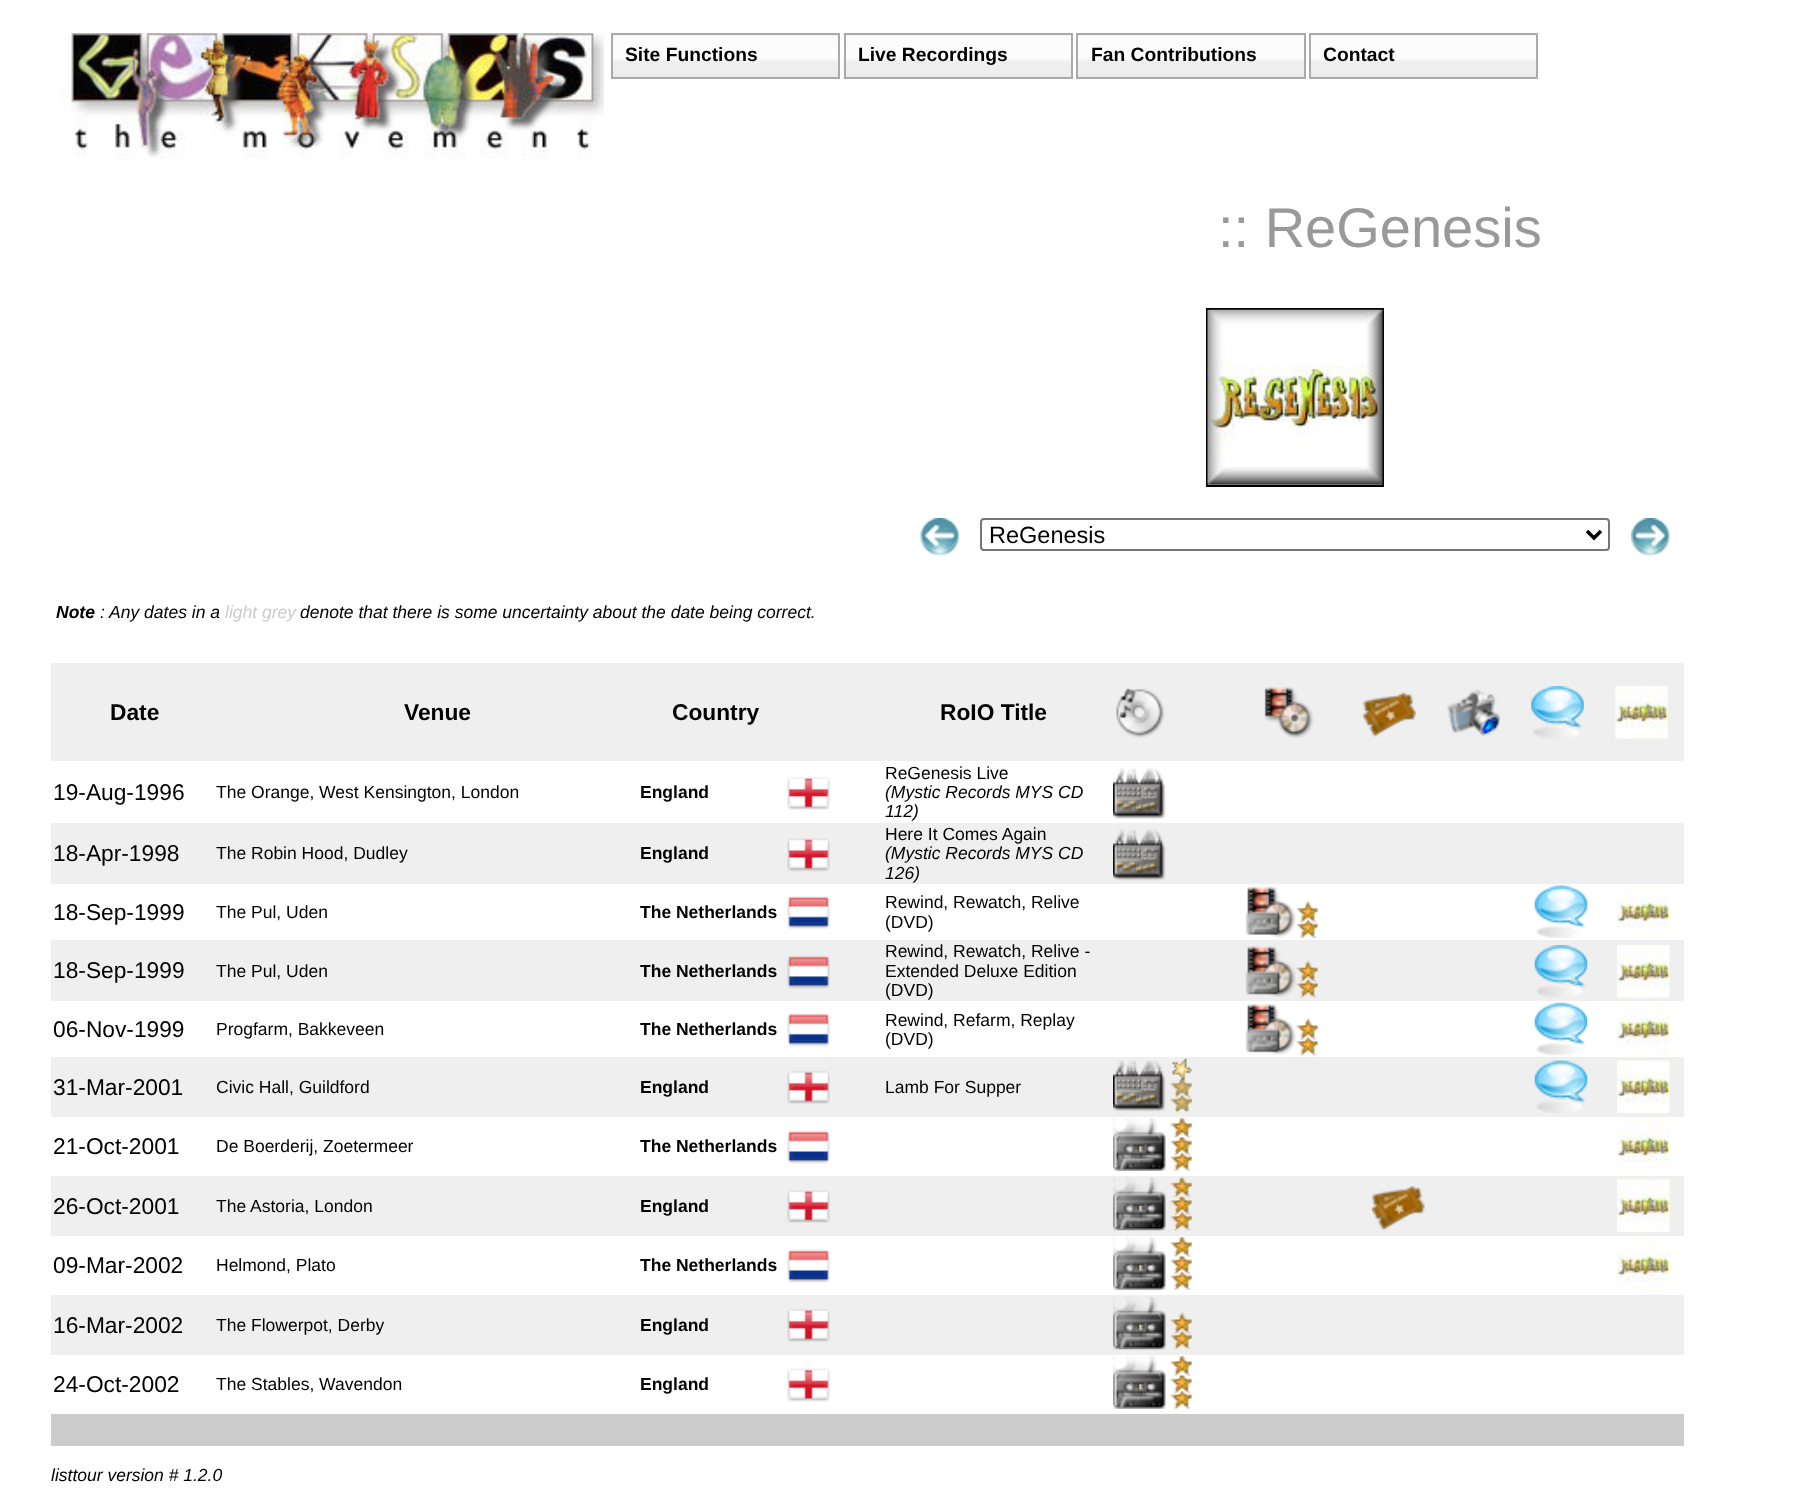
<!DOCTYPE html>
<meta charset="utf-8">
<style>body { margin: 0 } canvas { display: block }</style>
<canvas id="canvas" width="1820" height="1501"></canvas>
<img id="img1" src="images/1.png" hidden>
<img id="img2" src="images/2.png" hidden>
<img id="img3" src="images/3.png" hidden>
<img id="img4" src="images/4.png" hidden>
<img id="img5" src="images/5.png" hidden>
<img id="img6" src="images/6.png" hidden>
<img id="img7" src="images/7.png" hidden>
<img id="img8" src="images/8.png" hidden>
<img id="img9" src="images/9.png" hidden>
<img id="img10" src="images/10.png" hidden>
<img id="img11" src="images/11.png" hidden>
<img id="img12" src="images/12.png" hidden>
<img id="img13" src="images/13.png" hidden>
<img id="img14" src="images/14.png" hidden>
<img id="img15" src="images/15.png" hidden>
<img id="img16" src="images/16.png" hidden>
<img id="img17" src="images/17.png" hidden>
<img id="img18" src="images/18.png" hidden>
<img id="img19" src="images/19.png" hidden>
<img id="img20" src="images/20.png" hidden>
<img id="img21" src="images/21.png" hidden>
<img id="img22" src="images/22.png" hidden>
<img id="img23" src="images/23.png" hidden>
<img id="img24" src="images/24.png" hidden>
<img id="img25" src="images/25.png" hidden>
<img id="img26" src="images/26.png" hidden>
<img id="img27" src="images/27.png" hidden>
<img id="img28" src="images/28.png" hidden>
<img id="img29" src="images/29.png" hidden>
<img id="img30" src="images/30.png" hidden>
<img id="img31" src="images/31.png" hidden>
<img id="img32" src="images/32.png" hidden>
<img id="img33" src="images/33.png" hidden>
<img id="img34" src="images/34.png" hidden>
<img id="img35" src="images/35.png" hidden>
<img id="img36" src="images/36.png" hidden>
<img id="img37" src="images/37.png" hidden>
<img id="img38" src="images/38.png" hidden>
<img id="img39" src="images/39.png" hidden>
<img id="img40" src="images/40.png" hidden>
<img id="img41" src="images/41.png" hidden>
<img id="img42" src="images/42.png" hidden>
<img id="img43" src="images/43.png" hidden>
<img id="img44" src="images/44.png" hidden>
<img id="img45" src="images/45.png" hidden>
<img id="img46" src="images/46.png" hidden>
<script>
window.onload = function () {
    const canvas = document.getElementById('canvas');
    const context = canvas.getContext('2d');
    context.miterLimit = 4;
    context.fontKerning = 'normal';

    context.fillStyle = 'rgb(255, 255, 255)';
    context.fillRect(0, 0, 1820, 1501);
    context.drawImage(document.getElementById('img1'), 60, 33, 544, 126);
    context.drawImage(document.getElementById('img2'), 610, 33, 228, 46);
    context.strokeStyle = 'rgb(170, 170, 170)';
    context.lineWidth = 2;
    context.strokeRect(612, 34, 227, 44);
    context.drawImage(document.getElementById('img3'), 843, 33, 228, 46);
    context.strokeRect(845, 34, 227, 44);
    context.drawImage(document.getElementById('img4'), 1078, 35, 226, 42);
    context.strokeRect(1077, 34, 228, 44);
    context.drawImage(document.getElementById('img5'), 1311, 33, 228, 46);
    context.strokeRect(1310, 34, 227, 44);
    context.strokeStyle = 'rgb(0, 0, 0)';
    context.strokeRect(1207, 309, 176, 177);
    context.drawImage(document.getElementById('img6'), 1207, 309, 176, 176);
    context.drawImage(document.getElementById('img7'), 920, 518, 39, 39);
    context.beginPath();
    context.roundRect(981, 519, 628, 31, 3);
    context.strokeStyle = 'rgb(118, 118, 118)';
    context.stroke();
    context.beginPath();
    context.moveTo(1587, 531);
    context.lineTo(1594, 538);
    context.lineTo(1601, 531);
    context.strokeStyle = 'rgb(0, 0, 0)';
    context.lineWidth = 3.5;
    context.stroke();
    context.drawImage(document.getElementById('img8'), 1631, 518, 39, 39);
    context.fillStyle = 'rgb(239, 239, 239)';
    context.fillRect(51, 663, 1633, 98);
    context.drawImage(document.getElementById('img9'), 1116, 687, 49, 51);
    context.drawImage(document.getElementById('img10'), 1264, 687, 50, 51);
    context.drawImage(document.getElementById('img11'), 1363, 692, 53, 45);
    context.drawImage(document.getElementById('img12'), 1447, 689, 53, 47);
    context.drawImage(document.getElementById('img13'), 1531, 686, 53, 53);
    context.drawImage(document.getElementById('img14'), 1615, 686, 53, 53);
    context.drawImage(document.getElementById('img15'), 787, 777, 43, 33);
    context.drawImage(document.getElementById('img16'), 1113, 768, 53, 51);
    context.fillRect(51, 823, 1633, 61);
    context.drawImage(document.getElementById('img17'), 787, 838, 43, 34);
    context.drawImage(document.getElementById('img18'), 1113, 829, 53, 52);
    context.drawImage(document.getElementById('img19'), 787, 896, 43, 33);
    context.drawImage(document.getElementById('img20'), 1245, 886, 51, 52);
    context.drawImage(document.getElementById('img21'), 1296, 900, 22, 38);
    context.drawImage(document.getElementById('img22'), 1534, 885, 54, 53);
    context.drawImage(document.getElementById('img23'), 1617, 885, 53, 53);
    context.fillRect(51, 940, 1633, 61);
    context.drawImage(document.getElementById('img24'), 787, 955, 43, 34);
    context.drawImage(document.getElementById('img25'), 1245, 946, 51, 51);
    context.drawImage(document.getElementById('img26'), 1296, 960, 22, 38);
    context.drawImage(document.getElementById('img27'), 1534, 945, 54, 53);
    context.drawImage(document.getElementById('img28'), 1617, 945, 53, 53);
    context.drawImage(document.getElementById('img29'), 787, 1013, 43, 34);
    context.drawImage(document.getElementById('img30'), 1245, 1004, 51, 51);
    context.drawImage(document.getElementById('img31'), 1296, 1018, 22, 38);
    context.drawImage(document.getElementById('img32'), 1534, 1002, 54, 54);
    context.drawImage(document.getElementById('img33'), 1617, 1002, 53, 53);
    context.fillRect(51, 1057, 1633, 60);
    context.drawImage(document.getElementById('img34'), 787, 1071, 43, 33);
    context.drawImage(document.getElementById('img18'), 1113, 1060, 53, 52);
    context.drawImage(document.getElementById('img35'), 1170, 1058, 22, 54);
    context.drawImage(document.getElementById('img36'), 1534, 1060, 54, 53);
    context.drawImage(document.getElementById('img37'), 1617, 1060, 53, 53);
    context.drawImage(document.getElementById('img38'), 787, 1130, 43, 34);
    context.drawImage(document.getElementById('img39'), 1113, 1118, 53, 53);
    context.drawImage(document.getElementById('img40'), 1170, 1118, 22, 53);
    context.drawImage(document.getElementById('img41'), 1617, 1120, 53, 53);
    context.fillRect(51, 1176, 1633, 60);
    context.drawImage(document.getElementById('img34'), 787, 1190, 43, 33);
    context.drawImage(document.getElementById('img42'), 1113, 1177, 53, 54);
    context.drawImage(document.getElementById('img43'), 1170, 1177, 22, 54);
    context.drawImage(document.getElementById('img44'), 1372, 1186, 53, 45);
    context.drawImage(document.getElementById('img37'), 1617, 1179, 53, 53);
    context.drawImage(document.getElementById('img38'), 787, 1249, 43, 34);
    context.drawImage(document.getElementById('img39'), 1113, 1237, 53, 53);
    context.drawImage(document.getElementById('img40'), 1170, 1237, 22, 53);
    context.drawImage(document.getElementById('img41'), 1617, 1239, 53, 53);
    context.fillRect(51, 1295, 1633, 60);
    context.drawImage(document.getElementById('img34'), 787, 1309, 43, 33);
    context.drawImage(document.getElementById('img42'), 1113, 1296, 53, 54);
    context.drawImage(document.getElementById('img45'), 1170, 1312, 22, 38);
    context.drawImage(document.getElementById('img46'), 787, 1368, 43, 34);
    context.drawImage(document.getElementById('img39'), 1113, 1356, 53, 53);
    context.drawImage(document.getElementById('img40'), 1170, 1356, 22, 53);
    context.fillStyle = 'rgb(204, 204, 204)';
    context.fillRect(51, 1414, 1633, 32);
    context.font = 'bold 19.25px Liberation Sans';
    context.fillStyle = 'rgb(0, 0, 0)';
    context.fillText('Site Functions', 625, 61);
    context.fillText('Live Recordings', 858, 61);
    context.fillText('Fan Contributions', 1091, 61);
    context.fillText('Contact', 1323, 61);
    context.font = '56px Liberation Sans';
    context.fillStyle = 'rgb(153, 153, 153)';
    context.fillText(':: ReGenesis', 1218, 247);
    context.font = '23.5px Liberation Sans';
    context.fillStyle = 'rgb(0, 0, 0)';
    context.fillText('ReGenesis', 989, 543);
    context.font = 'italic bold 17.5px Liberation Sans';
    context.fillText('Note', 56, 618);
    context.font = 'italic 17.5px Liberation Sans';
    context.fillText(': Any dates in a', 100, 618);
    context.fillStyle = 'rgb(204, 204, 204)';
    context.fillText('light grey', 225, 618);
    context.fillStyle = 'rgb(0, 0, 0)';
    context.fillText('denote that there is some uncertainty about the date being correct.', 300, 618);
    context.font = 'bold 22.75px Liberation Sans';
    context.fillText('Date', 110, 720);
    context.fillText('Venue', 404, 720);
    context.fillText('Country', 672, 720);
    context.fillText('RoIO Title', 940, 720);
    context.font = '22.75px Liberation Sans';
    context.fillText('19-Aug-1996', 53, 800);
    context.font = '17.5px Liberation Sans';
    context.fillText('The Orange, West Kensington, London', 216, 798);
    context.font = 'bold 17.5px Liberation Sans';
    context.fillText('England', 640, 798);
    context.font = '17.5px Liberation Sans';
    context.fillText('ReGenesis Live', 885, 779);
    context.font = 'italic 17.5px Liberation Sans';
    context.fillText('(Mystic Records MYS CD', 885, 798);
    context.fillText('112)', 885, 817);
    context.font = '22.75px Liberation Sans';
    context.fillText('18-Apr-1998', 53, 861);
    context.font = '17.5px Liberation Sans';
    context.fillText('The Robin Hood, Dudley', 216, 859);
    context.font = 'bold 17.5px Liberation Sans';
    context.fillText('England', 640, 859);
    context.font = '17.5px Liberation Sans';
    context.fillText('Here It Comes Again', 885, 840);
    context.font = 'italic 17.5px Liberation Sans';
    context.fillText('(Mystic Records MYS CD', 885, 859);
    context.fillText('126)', 885, 879);
    context.font = '22.75px Liberation Sans';
    context.fillText('18-Sep-1999', 53, 920);
    context.font = '17.5px Liberation Sans';
    context.fillText('The Pul, Uden', 216, 918);
    context.font = 'bold 17.5px Liberation Sans';
    context.fillText('The Netherlands', 640, 918);
    context.font = '17.5px Liberation Sans';
    context.fillText('Rewind, Rewatch, Relive', 885, 908);
    context.fillText('(DVD)', 885, 928);
    context.font = '22.75px Liberation Sans';
    context.fillText('18-Sep-1999', 53, 978);
    context.font = '17.5px Liberation Sans';
    context.fillText('The Pul, Uden', 216, 977);
    context.font = 'bold 17.5px Liberation Sans';
    context.fillText('The Netherlands', 640, 977);
    context.font = '17.5px Liberation Sans';
    context.fillText('Rewind, Rewatch, Relive -', 885, 957);
    context.fillText('Extended Deluxe Edition', 885, 977);
    context.fillText('(DVD)', 885, 996);
    context.font = '22.75px Liberation Sans';
    context.fillText('06-Nov-1999', 53, 1037);
    context.font = '17.5px Liberation Sans';
    context.fillText('Progfarm, Bakkeveen', 216, 1035);
    context.font = 'bold 17.5px Liberation Sans';
    context.fillText('The Netherlands', 640, 1035);
    context.font = '17.5px Liberation Sans';
    context.fillText('Rewind, Refarm, Replay', 885, 1026);
    context.fillText('(DVD)', 885, 1045);
    context.font = '22.75px Liberation Sans';
    context.fillText('31-Mar-2001', 53, 1095);
    context.font = '17.5px Liberation Sans';
    context.fillText('Civic Hall, Guildford', 216, 1093);
    context.font = 'bold 17.5px Liberation Sans';
    context.fillText('England', 640, 1093);
    context.font = '17.5px Liberation Sans';
    context.fillText('Lamb For Supper', 885, 1093);
    context.font = '22.75px Liberation Sans';
    context.fillText('21-Oct-2001', 53, 1154);
    context.font = '17.5px Liberation Sans';
    context.fillText('De Boerderij, Zoetermeer', 216, 1152);
    context.font = 'bold 17.5px Liberation Sans';
    context.fillText('The Netherlands', 640, 1152);
    context.font = '22.75px Liberation Sans';
    context.fillText('26-Oct-2001', 53, 1214);
    context.font = '17.5px Liberation Sans';
    context.fillText('The Astoria, London', 216, 1212);
    context.font = 'bold 17.5px Liberation Sans';
    context.fillText('England', 640, 1212);
    context.font = '22.75px Liberation Sans';
    context.fillText('09-Mar-2002', 53, 1273);
    context.font = '17.5px Liberation Sans';
    context.fillText('Helmond, Plato', 216, 1271);
    context.font = 'bold 17.5px Liberation Sans';
    context.fillText('The Netherlands', 640, 1271);
    context.font = '22.75px Liberation Sans';
    context.fillText('16-Mar-2002', 53, 1333);
    context.font = '17.5px Liberation Sans';
    context.fillText('The Flowerpot, Derby', 216, 1331);
    context.font = 'bold 17.5px Liberation Sans';
    context.fillText('England', 640, 1331);
    context.font = '22.75px Liberation Sans';
    context.fillText('24-Oct-2002', 53, 1392);
    context.font = '17.5px Liberation Sans';
    context.fillText('The Stables, Wavendon', 216, 1390);
    context.font = 'bold 17.5px Liberation Sans';
    context.fillText('England', 640, 1390);
    context.font = 'italic 17.5px Liberation Sans';
    context.fillText('listtour version # 1.2.0', 51, 1481);
};
</script>
